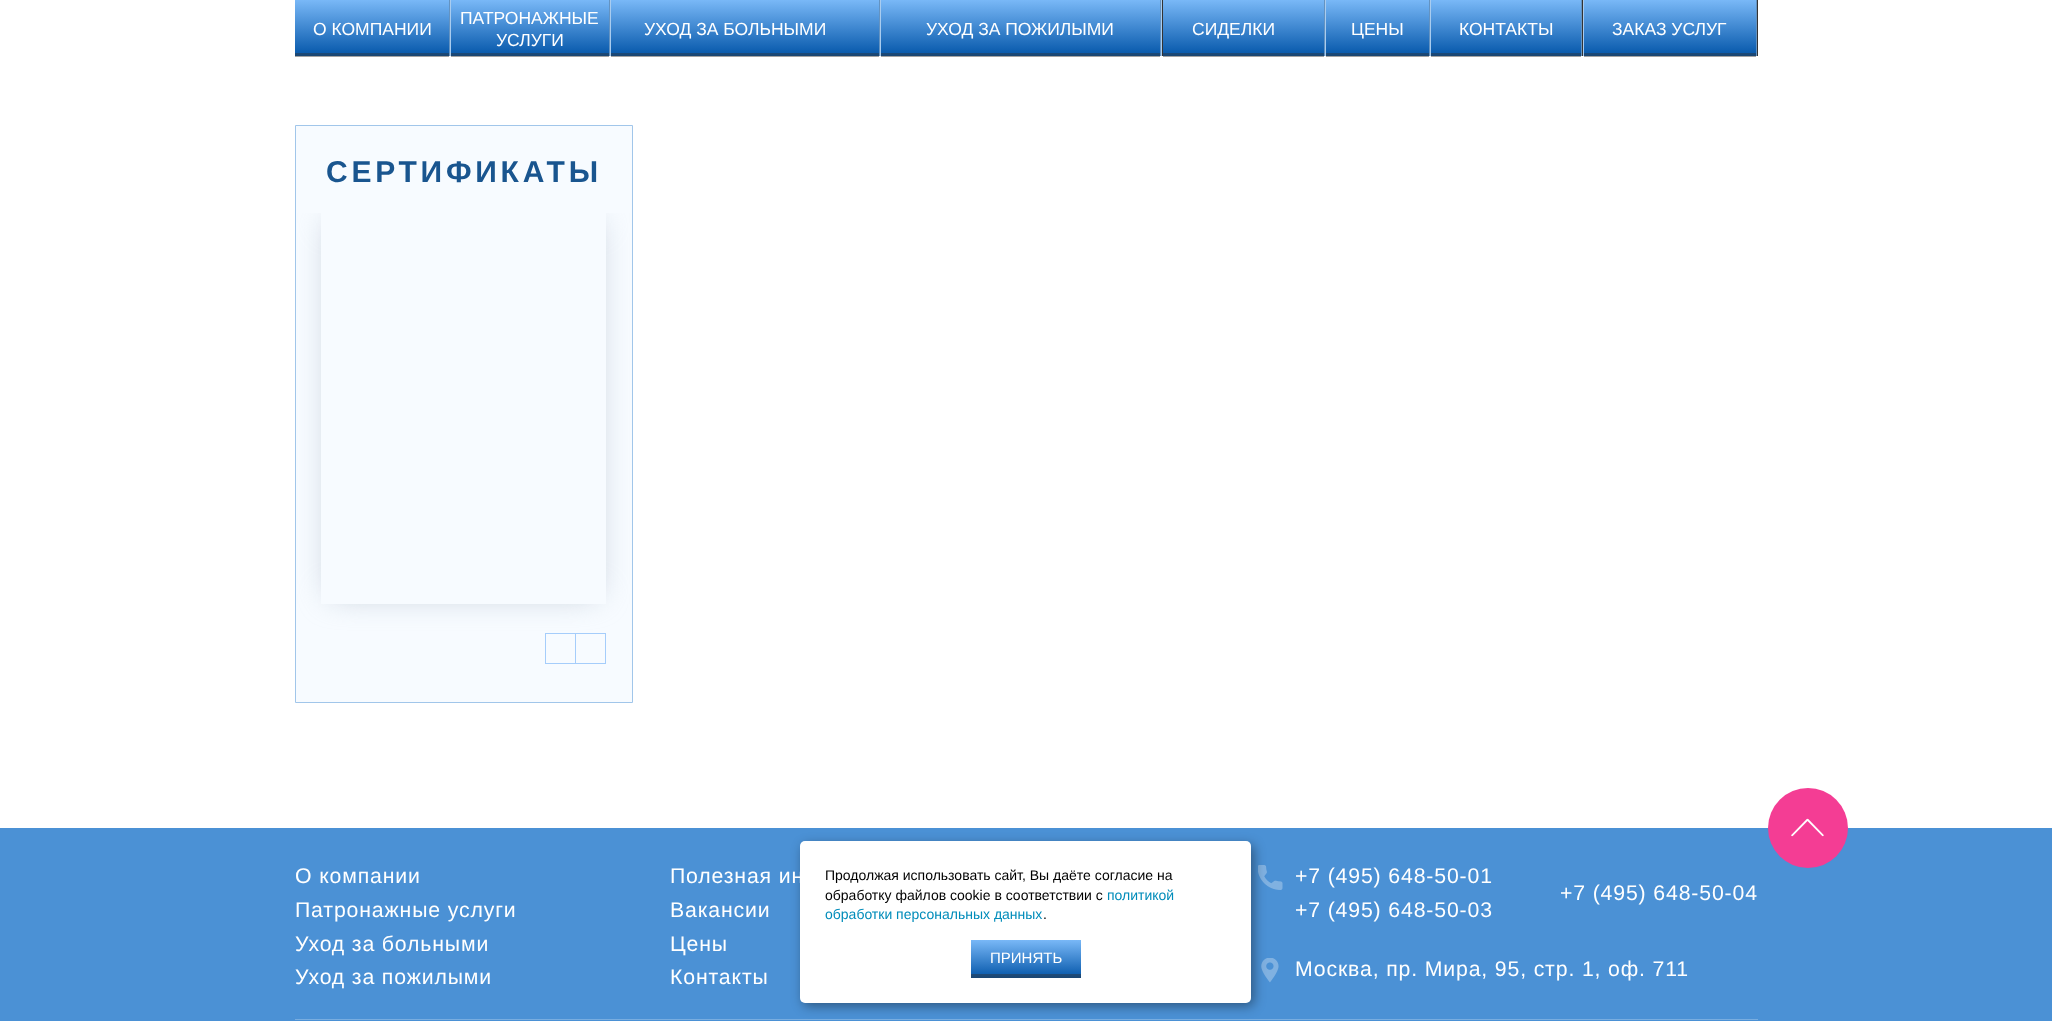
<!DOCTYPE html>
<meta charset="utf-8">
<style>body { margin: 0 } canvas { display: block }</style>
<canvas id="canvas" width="2052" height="1021"></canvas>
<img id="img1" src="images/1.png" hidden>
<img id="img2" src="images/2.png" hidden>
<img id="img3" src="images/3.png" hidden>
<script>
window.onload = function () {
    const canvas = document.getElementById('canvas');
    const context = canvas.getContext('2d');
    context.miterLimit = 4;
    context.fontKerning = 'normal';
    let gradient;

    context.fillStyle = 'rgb(255, 255, 255)';
    context.fillRect(0, 0, 2052, 1021);
    context.fillStyle = 'rgb(163, 163, 163)';
    context.fillRect(1584, 56, 172, 1);
    context.fillRect(1431, 56, 150, 1);
    context.fillRect(1326, 56, 103, 1);
    context.fillRect(1163, 56, 161, 1);
    context.fillRect(881, 56, 279, 1);
    context.fillRect(611, 56, 268, 1);
    context.fillRect(451, 56, 158, 1);
    context.fillRect(295, 56, 154, 1);
    context.fillStyle = 'rgb(100, 147, 193)';
    context.fillRect(449, 0, 1, 56);
    gradient = context.createLinearGradient(372, 0, 372, 56);
    gradient.addColorStop(0, 'rgb(121, 184, 247)');
    gradient.addColorStop(1, 'rgb(4, 86, 169)');
    context.fillStyle = gradient;
    context.fillRect(295, 0, 154, 53);
    gradient = context.createLinearGradient(372, 0, 372, 56);
    gradient.addColorStop(0, 'rgb(90, 124, 159)');
    gradient.addColorStop(1, 'rgb(25, 70, 116)');
    context.fillStyle = gradient;
    context.fillRect(295, 53, 154, 3);
    context.fillStyle = 'rgb(100, 147, 193)';
    context.fillRect(609, 0, 1, 56);
    context.fillStyle = 'rgb(169, 204, 239)';
    context.fillRect(450, 0, 1, 56);
    gradient = context.createLinearGradient(530, 0, 530, 56);
    gradient.addColorStop(0, 'rgb(121, 184, 247)');
    gradient.addColorStop(1, 'rgb(4, 86, 169)');
    context.fillStyle = gradient;
    context.fillRect(451, 0, 158, 53);
    gradient = context.createLinearGradient(530, 0, 530, 56);
    gradient.addColorStop(0, 'rgb(90, 124, 159)');
    gradient.addColorStop(1, 'rgb(25, 70, 116)');
    context.fillStyle = gradient;
    context.fillRect(451, 53, 158, 3);
    context.fillStyle = 'rgb(100, 147, 193)';
    context.fillRect(879, 0, 1, 56);
    context.fillStyle = 'rgb(169, 204, 239)';
    context.fillRect(610, 0, 1, 56);
    gradient = context.createLinearGradient(745, 0, 745, 56);
    gradient.addColorStop(0, 'rgb(121, 184, 247)');
    gradient.addColorStop(1, 'rgb(4, 86, 169)');
    context.fillStyle = gradient;
    context.fillRect(611, 0, 268, 53);
    gradient = context.createLinearGradient(745, 0, 745, 56);
    gradient.addColorStop(0, 'rgb(90, 124, 159)');
    gradient.addColorStop(1, 'rgb(25, 70, 116)');
    context.fillStyle = gradient;
    context.fillRect(611, 53, 268, 3);
    context.fillStyle = 'rgb(100, 147, 193)';
    context.fillRect(1160, 0, 1, 56);
    context.fillStyle = 'rgb(169, 204, 239)';
    context.fillRect(880, 0, 1, 56);
    gradient = context.createLinearGradient(1021, 0, 1021, 56);
    gradient.addColorStop(0, 'rgb(121, 184, 247)');
    gradient.addColorStop(1, 'rgb(4, 86, 169)');
    context.fillStyle = gradient;
    context.fillRect(881, 0, 279, 53);
    gradient = context.createLinearGradient(1021, 0, 1021, 56);
    gradient.addColorStop(0, 'rgb(90, 124, 159)');
    gradient.addColorStop(1, 'rgb(25, 70, 116)');
    context.fillStyle = gradient;
    context.fillRect(881, 53, 279, 3);
    context.fillStyle = 'rgb(51, 51, 51)';
    context.fillRect(1162, 0, 1, 56);
    context.fillStyle = 'rgb(100, 147, 193)';
    context.fillRect(1324, 0, 1, 56);
    context.fillStyle = 'rgb(169, 204, 239)';
    context.fillRect(1161, 0, 1, 56);
    gradient = context.createLinearGradient(1243, 0, 1243, 56);
    gradient.addColorStop(0, 'rgb(121, 184, 247)');
    gradient.addColorStop(1, 'rgb(4, 86, 169)');
    context.fillStyle = gradient;
    context.fillRect(1163, 0, 161, 53);
    gradient = context.createLinearGradient(1243, 0, 1243, 56);
    gradient.addColorStop(0, 'rgb(90, 124, 159)');
    gradient.addColorStop(1, 'rgb(25, 70, 116)');
    context.fillStyle = gradient;
    context.fillRect(1163, 53, 161, 3);
    context.fillStyle = 'rgb(100, 147, 193)';
    context.fillRect(1429, 0, 1, 56);
    context.fillStyle = 'rgb(169, 204, 239)';
    context.fillRect(1325, 0, 1, 56);
    gradient = context.createLinearGradient(1378, 0, 1378, 56);
    gradient.addColorStop(0, 'rgb(121, 184, 247)');
    gradient.addColorStop(1, 'rgb(4, 86, 169)');
    context.fillStyle = gradient;
    context.fillRect(1326, 0, 103, 53);
    gradient = context.createLinearGradient(1378, 0, 1378, 56);
    gradient.addColorStop(0, 'rgb(90, 124, 159)');
    gradient.addColorStop(1, 'rgb(25, 70, 116)');
    context.fillStyle = gradient;
    context.fillRect(1326, 53, 103, 3);
    context.fillStyle = 'rgb(51, 51, 51)';
    context.fillRect(1582, 0, 1, 56);
    context.fillStyle = 'rgb(100, 147, 193)';
    context.fillRect(1581, 0, 1, 56);
    context.fillStyle = 'rgb(169, 204, 239)';
    context.fillRect(1430, 0, 1, 56);
    gradient = context.createLinearGradient(1506, 0, 1506, 56);
    gradient.addColorStop(0, 'rgb(121, 184, 247)');
    gradient.addColorStop(1, 'rgb(4, 86, 169)');
    context.fillStyle = gradient;
    context.fillRect(1431, 0, 150, 53);
    gradient = context.createLinearGradient(1506, 0, 1506, 56);
    gradient.addColorStop(0, 'rgb(90, 124, 159)');
    gradient.addColorStop(1, 'rgb(25, 70, 116)');
    context.fillStyle = gradient;
    context.fillRect(1431, 53, 150, 3);
    context.fillStyle = 'rgb(51, 51, 51)';
    context.fillRect(1757, 0, 1, 56);
    context.fillStyle = 'rgb(100, 147, 193)';
    context.fillRect(1756, 0, 1, 56);
    context.fillStyle = 'rgb(169, 204, 239)';
    context.fillRect(1583, 0, 1, 56);
    gradient = context.createLinearGradient(1670, 0, 1670, 56);
    gradient.addColorStop(0, 'rgb(121, 184, 247)');
    gradient.addColorStop(1, 'rgb(4, 86, 169)');
    context.fillStyle = gradient;
    context.fillRect(1584, 0, 172, 53);
    gradient = context.createLinearGradient(1670, 0, 1670, 56);
    gradient.addColorStop(0, 'rgb(90, 124, 159)');
    gradient.addColorStop(1, 'rgb(25, 70, 116)');
    context.fillStyle = gradient;
    context.fillRect(1584, 53, 172, 3);
    context.fillStyle = 'rgb(247, 251, 255)';
    context.beginPath();
    context.rect(295.5, 125.5, 337, 577);
    context.fill();
    context.strokeStyle = 'rgb(161, 198, 234)';
    context.stroke();
    context.save();
    context.beginPath();
    context.rect(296, 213, 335, 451);
    context.clip();
    context.beginPath();
    context.moveTo(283, 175);
    context.lineTo(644, 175);
    context.lineTo(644, 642);
    context.lineTo(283, 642);
    context.closePath();
    context.moveTo(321, 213);
    context.lineTo(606, 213);
    context.lineTo(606, 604);
    context.lineTo(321, 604);
    context.closePath();
    context.clip('evenodd');
    context.fillStyle = 'rgb(182, 194, 205)';
    context.filter = 'blur(15.5px)';
    context.beginPath();
    context.rect(331, 223, 265, 371);
    context.fill();
    context.filter = 'none';
    context.restore();
    context.strokeStyle = 'rgb(165, 205, 251)';
    context.strokeRect(545.5, 633.5, 30, 30);
    context.strokeRect(575.5, 633.5, 30, 30);
    context.fillStyle = 'rgb(75, 145, 213)';
    context.fillRect(0, 828, 2052, 193);
    context.fillStyle = 'rgb(244, 61, 148)';
    context.beginPath();
    context.arc(1808, 828, 40, 0, 2 * Math.PI);
    context.fill();
    context.drawImage(document.getElementById('img1'), 1791, 818, 33, 19);
    context.drawImage(document.getElementById('img2'), 1258, 865, 25, 25);
    context.drawImage(document.getElementById('img3'), 1261, 958, 18, 25);
    context.fillStyle = 'rgb(120, 173, 224)';
    context.fillRect(295, 1019, 1463, 1);
    context.fillStyle = 'rgba(0, 0, 0, 0.4)';
    context.filter = 'blur(6px)';
    context.beginPath();
    context.roundRect(803, 845, 451, 161, 5);
    context.fill();
    context.filter = 'none';
    context.fillStyle = 'rgb(255, 255, 255)';
    context.beginPath();
    context.roundRect(800, 841, 451, 162, 5);
    context.fill();
    gradient = context.createLinearGradient(1027, 940, 1027, 978);
    gradient.addColorStop(0, 'rgb(121, 184, 247)');
    gradient.addColorStop(1, 'rgb(4, 86, 169)');
    context.fillStyle = gradient;
    context.fillRect(971, 940, 110, 34);
    gradient = context.createLinearGradient(1027, 940, 1027, 978);
    gradient.addColorStop(0, 'rgb(90, 124, 159)');
    gradient.addColorStop(1, 'rgb(25, 70, 116)');
    context.fillStyle = gradient;
    context.fillRect(971, 974, 110, 4);
    context.font = '17.5px Liberation Sans';
    context.fillStyle = 'rgb(255, 255, 255)';
    context.fillText('О КОМПАНИИ', 313, 35);
    context.fillText('ПАТРОНАЖНЫЕ', 460, 24);
    context.fillText('УСЛУГИ', 496, 46);
    context.fillText('УХОД ЗА БОЛЬНЫМИ', 644, 35);
    context.fillText('УХОД ЗА ПОЖИЛЫМИ', 926, 35);
    context.fillText('CИДЕЛКИ', 1192, 35);
    context.fillText('ЦЕНЫ', 1351, 35);
    context.fillText('КОНТАКТЫ', 1459, 35);
    context.fillText('ЗАКАЗ УСЛУГ', 1612, 35);
    context.letterSpacing = '3.75px';
    context.font = 'bold 30px Liberation Sans';
    context.fillStyle = 'rgb(25, 85, 143)';
    context.fillText('СЕРТИФИКАТЫ', 326, 182);
    context.letterSpacing = '0.85px';
    context.font = '21.25px Liberation Sans';
    context.fillStyle = 'rgb(255, 255, 255)';
    context.fillText('О компании', 295, 883);
    context.fillText('Патронажные услуги', 295, 917);
    context.fillText('Уход за больными', 295, 951);
    context.fillText('Уход за пожилыми', 295, 984);
    context.fillText('Полезная ин', 670, 883);
    context.fillText('Вакансии', 670, 917);
    context.fillText('Цены', 670, 951);
    context.fillText('Контакты', 670, 984);
    context.fillText('+7 (495) 648-50-01', 1295, 883);
    context.fillText('+7 (495) 648-50-03', 1295, 917);
    context.fillText('+7 (495) 648-50-04', 1560, 900);
    context.fillText('Москва, пр. Мира, 95, стр. 1, оф. 711', 1295, 976);
    context.letterSpacing = '0px';
    context.font = '14px Liberation Sans';
    context.fillStyle = 'rgb(0, 0, 0)';
    context.fillText('Продолжая использовать сайт, Вы даёте согласие на', 825, 880);
    context.fillText('обработку файлов cookie в соответствии с', 825, 900);
    context.fillStyle = 'rgb(0, 140, 186)';
    context.fillText('политикой', 1107, 900);
    context.fillText('обработки персональных данных', 825, 919);
    context.fillStyle = 'rgb(0, 0, 0)';
    context.fillText('.', 1043, 919);
    context.font = '15px Liberation Sans';
    context.fillStyle = 'rgb(255, 255, 255)';
    context.fillText('ПРИНЯТЬ', 990, 963);
};
</script>
